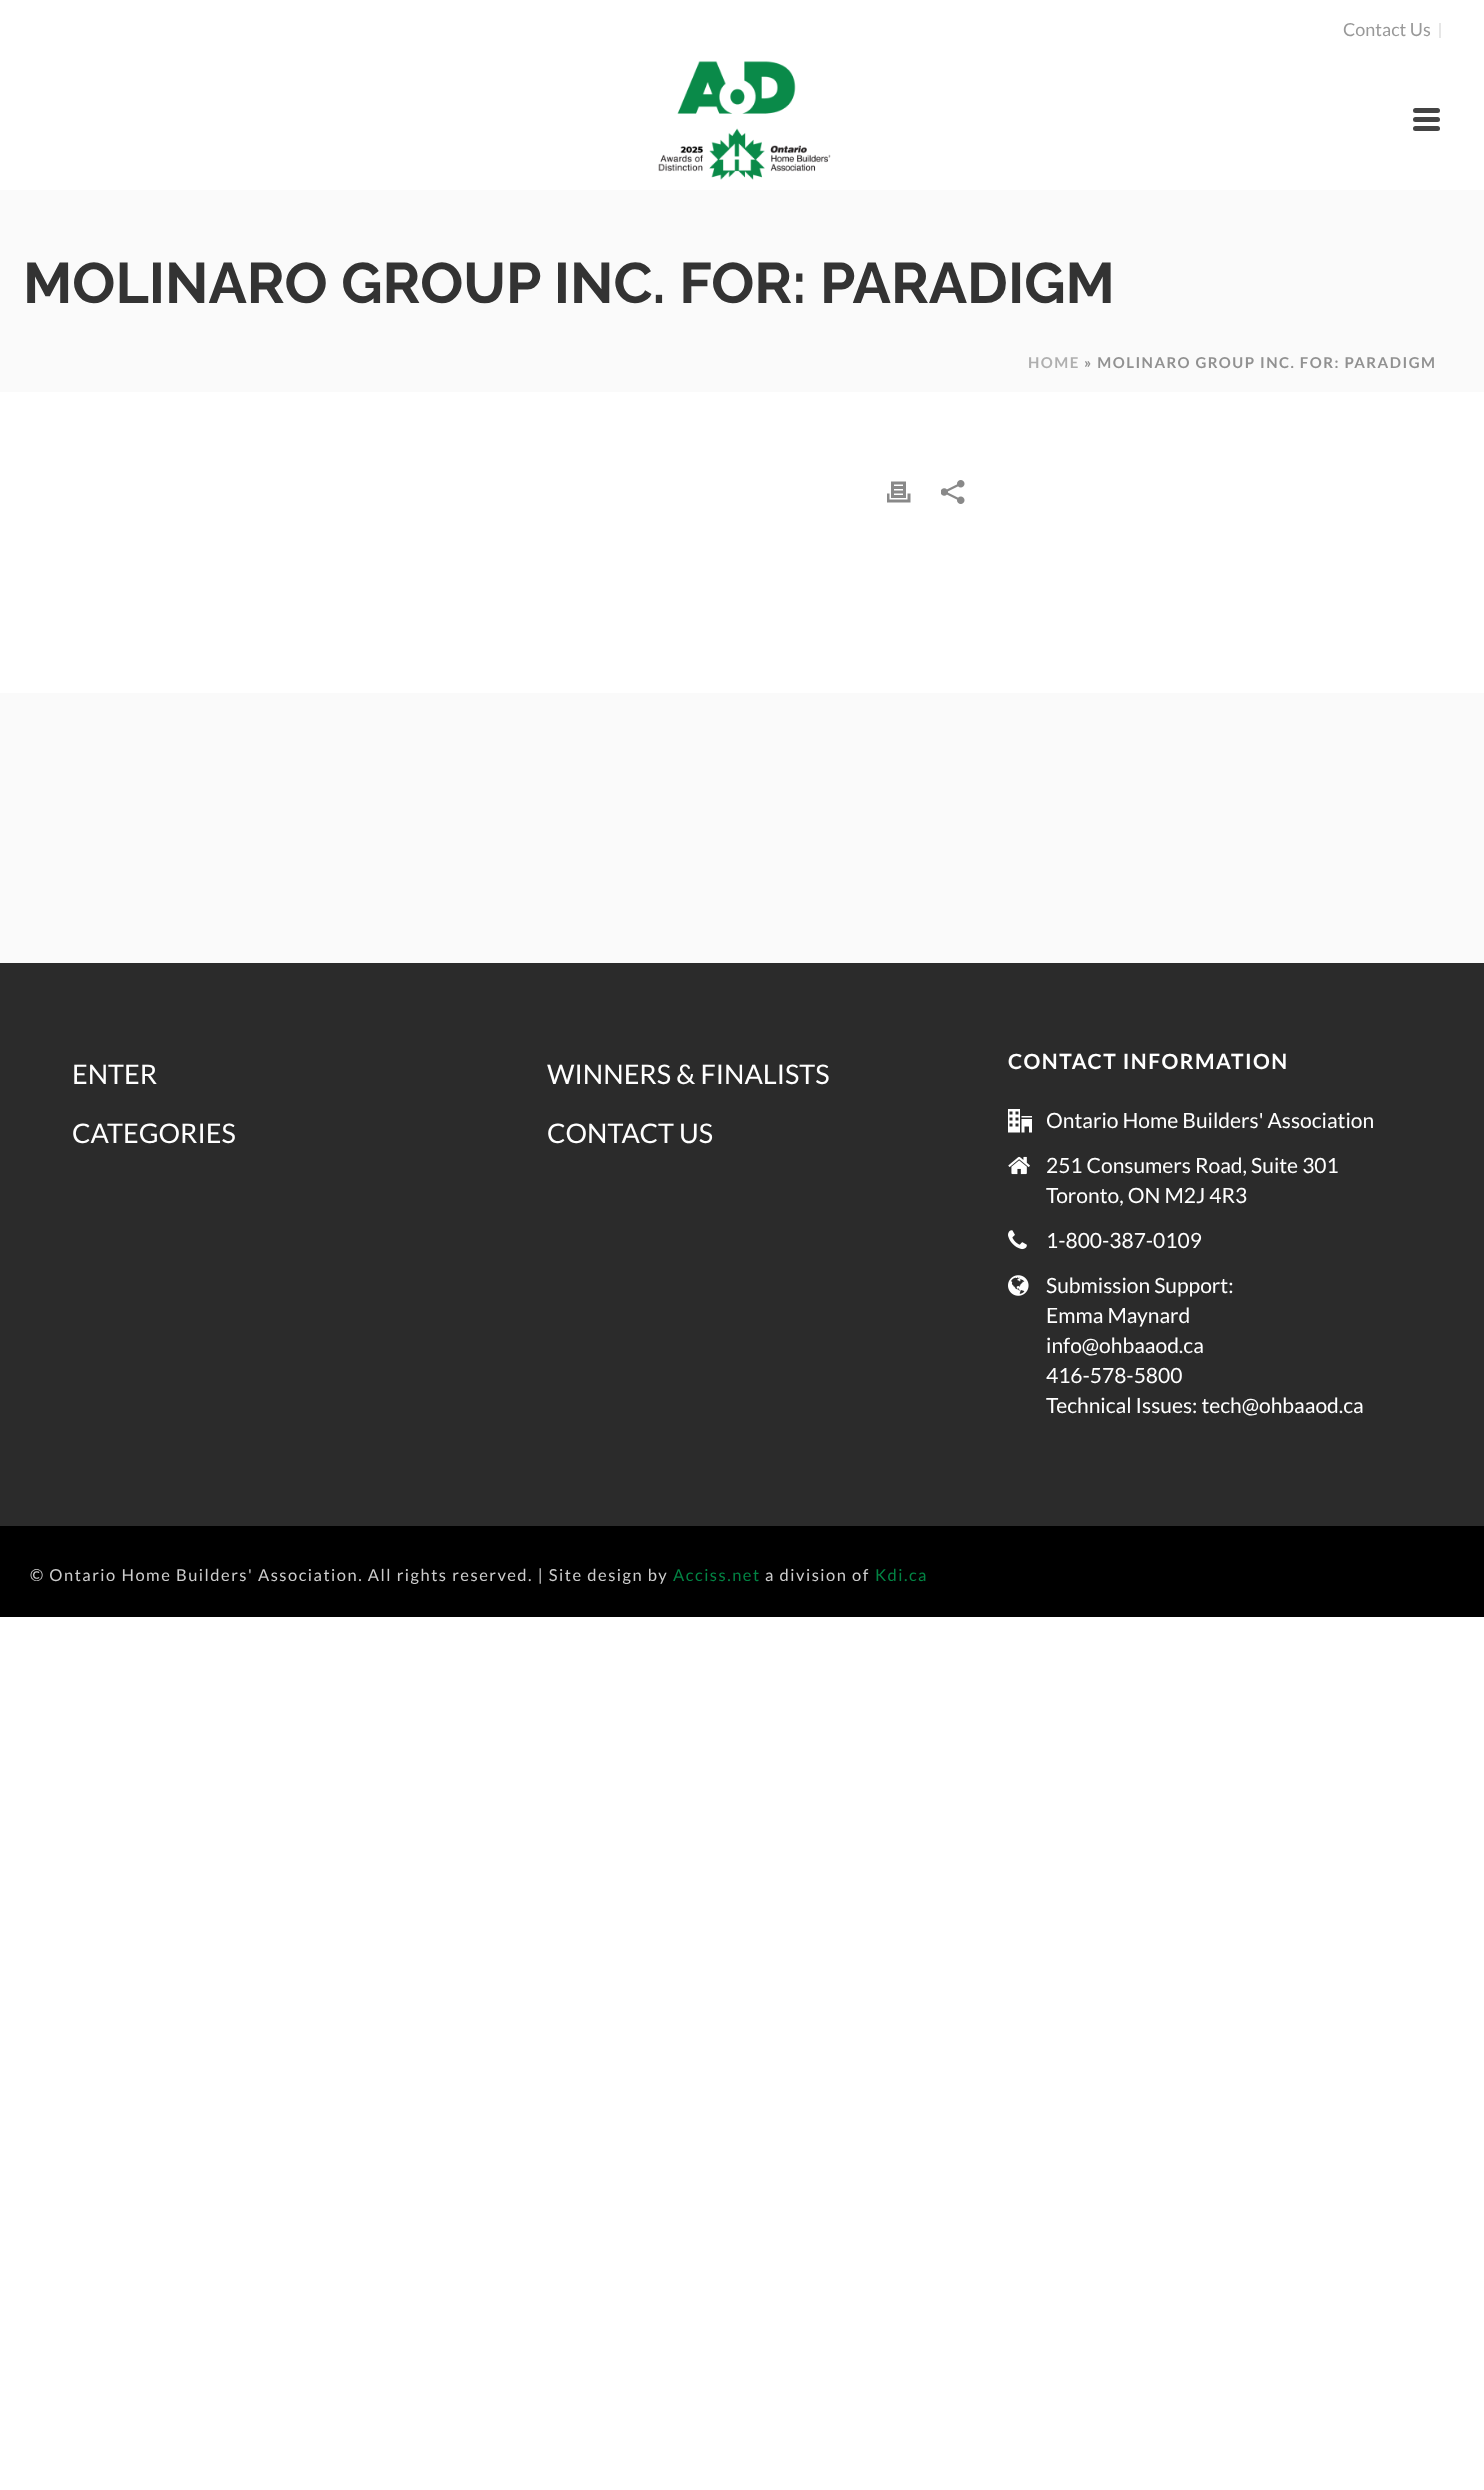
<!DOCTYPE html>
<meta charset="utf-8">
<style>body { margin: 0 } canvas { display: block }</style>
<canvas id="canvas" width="1484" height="2490"></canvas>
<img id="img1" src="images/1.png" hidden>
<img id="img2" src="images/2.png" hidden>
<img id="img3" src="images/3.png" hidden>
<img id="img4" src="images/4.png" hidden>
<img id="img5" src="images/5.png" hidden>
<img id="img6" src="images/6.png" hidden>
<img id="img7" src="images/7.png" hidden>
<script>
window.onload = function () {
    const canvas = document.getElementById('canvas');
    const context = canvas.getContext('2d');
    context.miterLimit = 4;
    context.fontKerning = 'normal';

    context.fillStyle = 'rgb(255, 255, 255)';
    context.fillRect(0, 0, 1484, 2490);
    context.fillStyle = 'rgb(250, 250, 250)';
    context.fillRect(0, 190, 1484, 202);
    context.fillStyle = 'rgb(230, 230, 230)';
    context.fillRect(1439, 23, 2, 15);
    context.drawImage(document.getElementById('img1'), 658, 61, 173, 119);
    context.fillStyle = 'rgb(68, 68, 68)';
    context.beginPath();
    context.roundRect(1413, 108, 27, 5, 2.5);
    context.fill();
    context.beginPath();
    context.roundRect(1413, 117, 27, 5, 2.5);
    context.fill();
    context.beginPath();
    context.roundRect(1413, 126, 27, 5, 2.5);
    context.fill();
    context.drawImage(document.getElementById('img2'), 887, 481, 24, 22);
    context.drawImage(document.getElementById('img3'), 941, 480, 24, 24);
    context.fillStyle = 'rgb(250, 250, 250)';
    context.fillRect(0, 693, 1484, 270);
    context.fillStyle = 'rgb(43, 43, 43)';
    context.fillRect(0, 963, 1484, 563);
    context.drawImage(document.getElementById('img4'), 1008, 1109, 24, 24);
    context.drawImage(document.getElementById('img5'), 1008, 1156, 22, 19);
    context.drawImage(document.getElementById('img6'), 1008, 1230, 19, 20);
    context.drawImage(document.getElementById('img7'), 1008, 1275, 21, 21);
    context.fillStyle = 'rgb(0, 0, 0)';
    context.fillRect(0, 1526, 1484, 91);
    context.font = '18px Lato';
    context.fillStyle = 'rgb(153, 153, 153)';
    context.fillText('Contact Us', 1343, 36);
    context.font = 'bold 57px Raleway';
    context.fillStyle = 'rgb(51, 51, 51)';
    context.fillText('MOLINARO GROUP INC. FOR: PARADIGM', 23, 303);
    context.letterSpacing = '1.5px';
    context.font = 'bold 15px Lato';
    context.fillStyle = 'rgb(175, 175, 175)';
    context.fillText('HOME', 1028, 368);
    context.fillStyle = 'rgb(145, 145, 145)';
    context.fillText('» MOLINARO GROUP INC. FOR: PARADIGM', 1084, 368);
    context.letterSpacing = '0px';
    context.font = '27px Lato';
    context.fillStyle = 'rgb(255, 255, 255)';
    context.fillText('ENTER', 72, 1084);
    context.fillText('CATEGORIES', 72, 1143);
    context.fillText('WINNERS & FINALISTS', 547, 1084);
    context.fillText('CONTACT US', 547, 1143);
    context.letterSpacing = '1.5px';
    context.font = 'bold 21px Lato';
    context.fillText('CONTACT INFORMATION', 1008, 1069);
    context.letterSpacing = '0px';
    context.font = '21px Lato';
    context.fillText('Ontario Home Builders\' Association', 1046, 1128);
    context.fillText('251 Consumers Road, Suite 301', 1046, 1173);
    context.fillText('Toronto, ON M2J 4R3', 1046, 1203);
    context.fillText('1-800-387-0109', 1046, 1248);
    context.fillText('Submission Support:', 1046, 1293);
    context.fillText('Emma Maynard', 1046, 1323);
    context.fillText('info@ohbaaod.ca', 1046, 1353);
    context.fillText('416-578-5800', 1046, 1383);
    context.fillText('Technical Issues: tech@ohbaaod.ca', 1046, 1413);
    context.letterSpacing = '1.5px';
    context.font = '16.5px Lato';
    context.fillStyle = 'rgb(204, 204, 204)';
    context.fillText('© Ontario Home Builders\' Association. All rights reserved. | Site design by', 30, 1581);
    context.fillStyle = 'rgb(2, 131, 67)';
    context.fillText('Acciss.net', 673, 1581);
    context.fillStyle = 'rgb(204, 204, 204)';
    context.fillText('a division of', 765, 1581);
    context.fillStyle = 'rgb(2, 131, 67)';
    context.fillText('Kdi.ca', 875, 1581);
};
</script>
